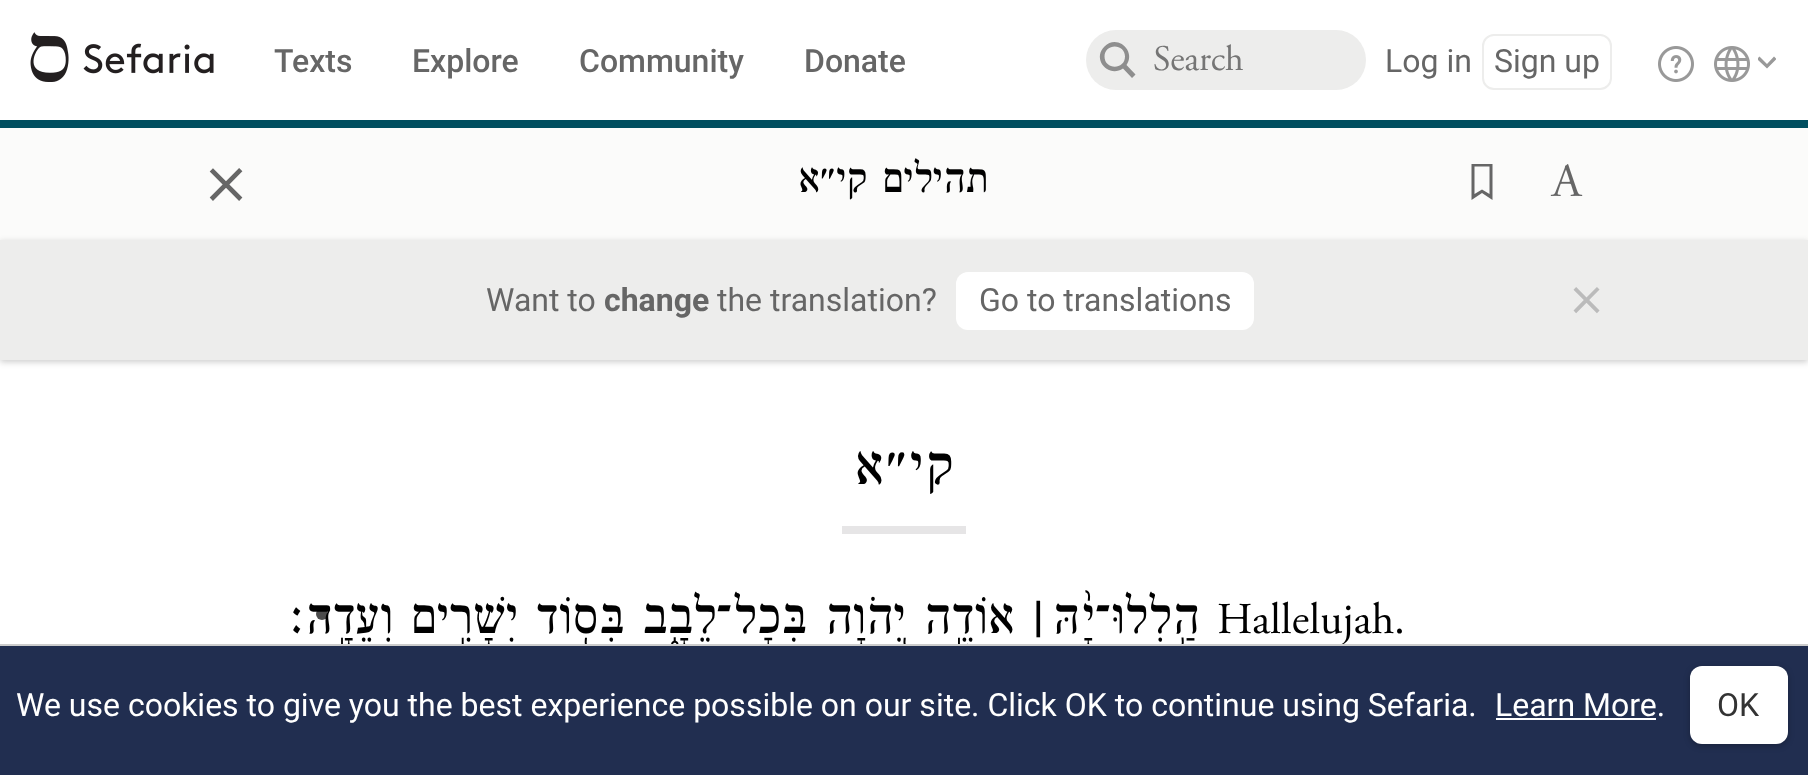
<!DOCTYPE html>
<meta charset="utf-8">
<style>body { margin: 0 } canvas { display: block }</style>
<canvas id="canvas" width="1808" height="775"></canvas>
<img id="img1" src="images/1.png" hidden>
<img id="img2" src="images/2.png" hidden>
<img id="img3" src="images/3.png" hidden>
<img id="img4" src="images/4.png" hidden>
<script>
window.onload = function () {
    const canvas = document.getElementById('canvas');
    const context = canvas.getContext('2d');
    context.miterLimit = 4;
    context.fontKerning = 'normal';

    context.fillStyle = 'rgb(255, 255, 255)';
    context.fillRect(0, 0, 1808, 775);
    context.drawImage(document.getElementById('img1'), 30, 32, 184, 50);
    context.fillStyle = 'rgb(237, 237, 236)';
    context.beginPath();
    context.roundRect(1086, 30, 280, 60, 30);
    context.fill();
    context.fillStyle = 'rgb(142, 142, 142)';
    context.beginPath();
    context.moveTo(1135.5, 74.5);
    context.lineTo(1126.5, 65);
    context.bezierCurveTo(1136.5, 51, 1117, 33.5, 1104.5, 46.5);
    context.bezierCurveTo(1091.5, 59, 1108.5, 78.5, 1123, 68.5);
    context.lineTo(1132, 78);
    context.closePath();
    context.moveTo(1104.5, 56.5);
    context.bezierCurveTo(1104.5, 43, 1125, 43, 1125, 56.5);
    context.bezierCurveTo(1125, 70, 1104.5, 70, 1104.5, 56.5);
    context.closePath();
    context.fill();
    context.beginPath();
    context.roundRect(1483, 35, 128, 54, 11);
    context.strokeStyle = 'rgb(237, 237, 236)';
    context.lineWidth = 2;
    context.stroke();
    context.drawImage(document.getElementById('img2'), 1658, 46, 36, 36);
    context.drawImage(document.getElementById('img3'), 1714, 46, 36, 36);
    context.save();
    context.beginPath();
    context.rect(1758, 56, 18, 14);
    context.clip();
    context.fillStyle = 'rgb(153, 153, 153)';
    context.beginPath();
    context.moveTo(1774, 56.5);
    context.lineTo(1776.5, 59);
    context.lineTo(1767, 68.5);
    context.lineTo(1757, 59);
    context.lineTo(1759.5, 56.5);
    context.lineTo(1767, 64);
    context.closePath();
    context.fill();
    context.restore();
    context.fillStyle = 'rgb(0, 78, 95)';
    context.fillRect(0, 120, 1808, 8);
    context.fillStyle = 'rgb(251, 251, 250)';
    context.fillRect(0, 128, 1808, 112);
    context.fillStyle = 'rgb(102, 102, 102)';
    context.beginPath();
    context.moveTo(1489.5, 166.5);
    context.lineTo(1489.5, 194);
    context.lineTo(1482, 189.5);
    context.lineTo(1474.5, 194);
    context.lineTo(1474.5, 166.5);
    context.closePath();
    context.moveTo(1492.5, 164);
    context.lineTo(1471.5, 164);
    context.lineTo(1471.5, 200);
    context.lineTo(1482, 193);
    context.lineTo(1492.5, 200);
    context.closePath();
    context.fill();
    context.drawImage(document.getElementById('img4'), 1550, 164, 33, 32);
    context.fillStyle = 'rgba(0, 0, 0, 0.2)';
    context.filter = 'blur(3px)';
    context.beginPath();
    context.rect(0, 242, 1808, 120);
    context.fill();
    context.filter = 'none';
    context.fillStyle = 'rgb(237, 237, 236)';
    context.fillRect(0, 240, 1808, 120);
    context.fillStyle = 'rgb(255, 255, 255)';
    context.beginPath();
    context.roundRect(956, 272, 298, 58, 12);
    context.fill();
    context.fillStyle = 'rgb(230, 229, 230)';
    context.fillRect(842, 526, 124, 8);
    context.font = '500 32px Roboto';
    context.fillStyle = 'rgb(102, 102, 102)';
    context.fillText('Texts', 274, 72);
    context.fillText('Explore', 412, 72);
    context.fillText('Community', 579, 72);
    context.fillText('Donate', 804, 72);
    context.font = '36px Adobe Garamond';
    context.fillStyle = 'rgb(117, 117, 117)';
    context.fillText('Search', 1153, 70);
    context.font = '32px Roboto';
    context.fillStyle = 'rgb(102, 102, 102)';
    context.fillText('Log in', 1385, 72);
    context.fillText('Sign up', 1494, 72);
    context.font = '88px Adobe Garamond';
    context.fillText('×', 204, 202);
    context.direction = 'rtl';
    context.font = '500 44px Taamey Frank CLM';
    context.fillStyle = 'rgb(0, 0, 0)';
    context.fillText('קי״א', 867, 192);
    context.fillText('תהילים', 987, 192);
    context.direction = 'ltr';
    context.font = '32px Roboto';
    context.fillStyle = 'rgb(102, 102, 102)';
    context.fillText('Want to', 486, 311);
    context.font = 'bold 32px Roboto';
    context.fillText('change', 604, 311);
    context.font = '32px Roboto';
    context.fillText('the translation?', 717, 311);
    context.fillText('Go to translations', 979, 311);
    context.font = '70px Adobe Garamond';
    context.fillStyle = 'rgb(187, 187, 187)';
    context.fillText('×', 1569, 314);
    context.letterSpacing = '2px';
    context.direction = 'rtl';
    context.font = '500 59px Taamey Frank CLM';
    context.fillStyle = 'rgb(0, 0, 0)';
    context.fillText('קי״א', 955, 484);
    context.letterSpacing = '0px';
    context.font = '500 53.75px Taamey Frank CLM';
    context.fillText('אוֹדֶ֣ה יְ֭הֹוָה בְּכׇל־לֵבָ֑ב בְּס֖וֹד יְשָׁרִ֣ים וְעֵדָֽה׃', 1014, 633);
    context.font = 'bold 53.75px Taamey Frank CLM';
    context.fillText('׀', 1048, 633);
    context.font = '500 53.75px Taamey Frank CLM';
    context.fillText('יָ֨הּ', 1094, 633);
    context.fillText('־', 1111, 633);
    context.fillText('הַ֥לְלוּ', 1199, 633);
    context.direction = 'ltr';
    context.font = '44px Adobe Garamond';
    context.fillText('Hallelujah.', 1217, 633);
    context.fillStyle = 'rgba(0, 0, 0, 0.7)';
    context.beginPath();
    context.arc(322, 614, 6, 0, 2 * Math.PI);
    context.fill();
    context.fillStyle = 'rgb(33, 46, 80)';
    context.fillRect(0, 646, 1808, 129);
    context.fillStyle = 'rgb(204, 204, 204)';
    context.fillRect(0, 644, 1808, 2);
    context.font = '32px Roboto';
    context.fillStyle = 'rgb(255, 255, 255)';
    context.fillText('We use cookies to give you the best experience possible on our site. Click OK to continue using Sefaria.', 16, 716);
    context.fillText('Learn More.', 1495, 716);
    context.fillRect(1496, 718, 160, 2);
    context.fillStyle = 'rgba(0, 0, 0, 0.25)';
    context.filter = 'blur(3px)';
    context.beginPath();
    context.roundRect(1690, 668, 98, 78, 12);
    context.fill();
    context.filter = 'none';
    context.fillStyle = 'rgb(255, 255, 255)';
    context.beginPath();
    context.roundRect(1690, 666, 98, 78, 12);
    context.fill();
    context.fillStyle = 'rgb(51, 51, 51)';
    context.fillText('OK', 1717, 716);
};
</script>
